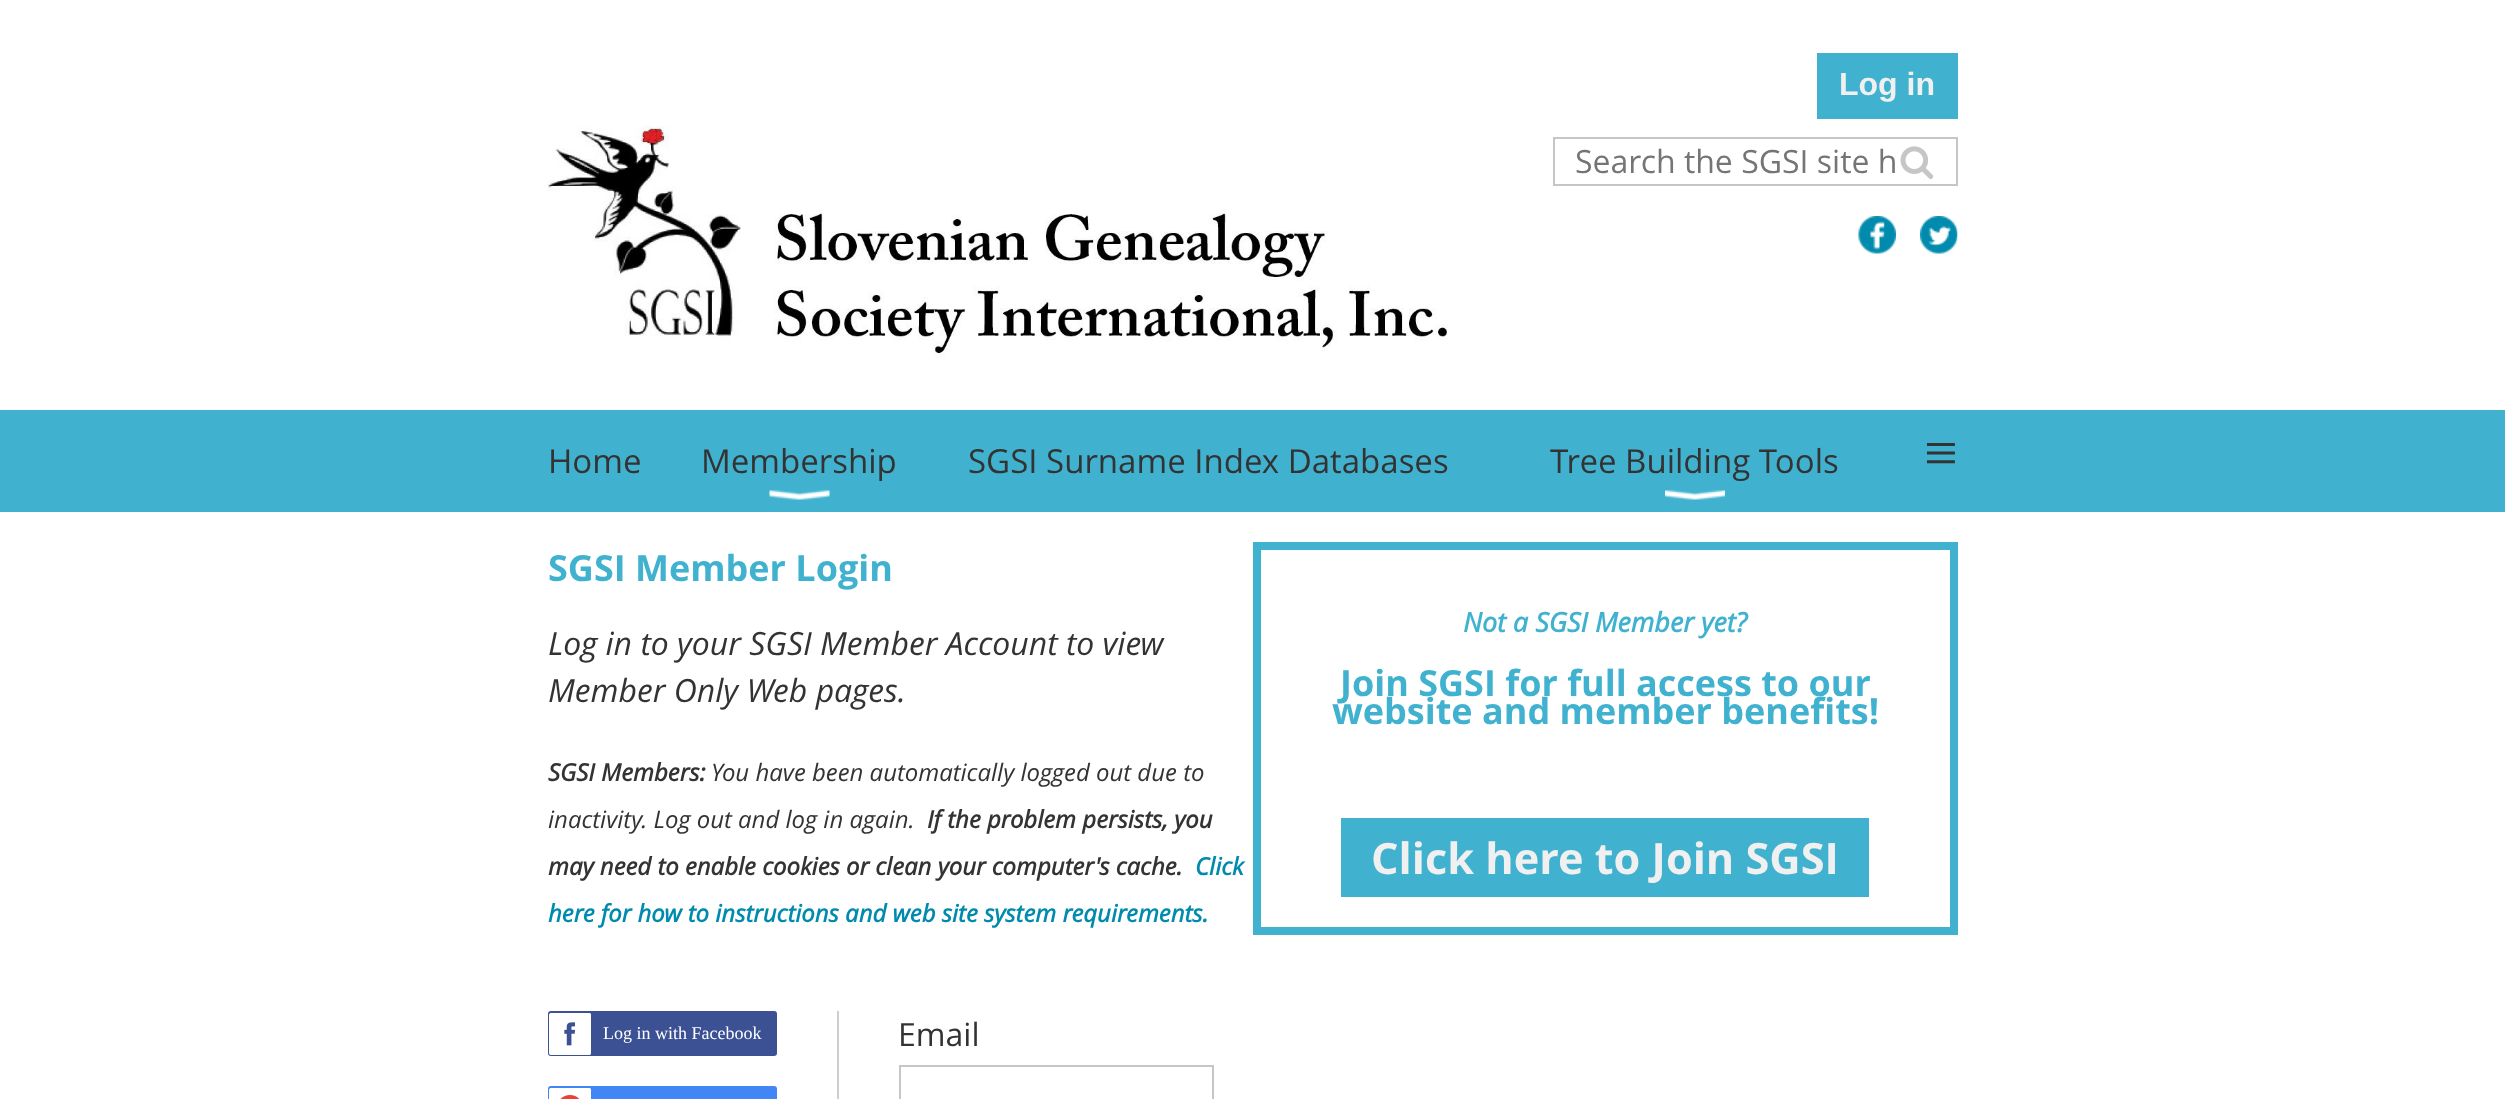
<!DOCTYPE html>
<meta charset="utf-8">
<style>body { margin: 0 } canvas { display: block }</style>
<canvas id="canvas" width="2505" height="1099"></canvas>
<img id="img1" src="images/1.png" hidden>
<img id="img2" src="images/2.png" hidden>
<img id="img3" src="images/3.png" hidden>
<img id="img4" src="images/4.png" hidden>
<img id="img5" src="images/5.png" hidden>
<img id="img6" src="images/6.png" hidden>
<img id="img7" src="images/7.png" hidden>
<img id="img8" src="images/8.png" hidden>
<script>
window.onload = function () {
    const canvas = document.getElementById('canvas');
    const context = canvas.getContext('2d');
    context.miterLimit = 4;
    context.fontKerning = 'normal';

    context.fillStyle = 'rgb(255, 255, 255)';
    context.fillRect(0, 0, 2505, 1099);
    context.fillStyle = 'rgb(64, 178, 207)';
    context.fillRect(1817, 53, 141, 66);
    context.drawImage(document.getElementById('img1'), 547, 126, 901, 232);
    context.strokeStyle = 'rgb(198, 198, 198)';
    context.lineWidth = 2;
    context.strokeRect(1554, 138, 403, 47);
    context.drawImage(document.getElementById('img2'), 1900, 146, 34, 33);
    context.drawImage(document.getElementById('img3'), 1858, 216, 38, 38);
    context.drawImage(document.getElementById('img4'), 1920, 216, 38, 38);
    context.fillRect(0, 410, 2505, 102);
    context.drawImage(document.getElementById('img5'), 769, 490, 61, 10);
    context.drawImage(document.getElementById('img6'), 1665, 490, 60, 10);
    context.fillStyle = 'rgb(205, 205, 205)';
    context.fillRect(837, 1011, 2, 88);
    context.fillStyle = 'rgb(60, 81, 147)';
    context.beginPath();
    context.roundRect(549, 1012, 227, 43, 2);
    context.fill();
    context.strokeStyle = 'rgb(60, 81, 147)';
    context.stroke();
    context.drawImage(document.getElementById('img7'), 549, 1013, 42, 42);
    context.fillStyle = 'rgb(66, 133, 244)';
    context.beginPath();
    context.roundRect(549, 1087, 227, 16, 2);
    context.fill();
    context.strokeStyle = 'rgb(66, 133, 244)';
    context.stroke();
    context.drawImage(document.getElementById('img8'), 549, 1088, 42, 11);
    context.strokeStyle = 'rgb(198, 198, 198)';
    context.strokeRect(900, 1066, 313, 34);
    context.strokeStyle = 'rgb(64, 178, 207)';
    context.lineWidth = 8;
    context.strokeRect(1257, 546, 697, 385);
    context.fillStyle = 'rgb(64, 178, 207)';
    context.fillRect(1341, 818, 528, 79);
    context.font = 'bold 32px Liberation Sans';
    context.fillStyle = 'rgb(240, 240, 240)';
    context.fillText('Log in', 1839, 95);
    context.font = '32px Open Sans';
    context.fillStyle = 'rgb(117, 117, 117)';
    context.fillText('Search the SGSI site h', 1575, 173);
    context.font = '33px Open Sans';
    context.fillStyle = 'rgb(51, 51, 51)';
    context.fillText('Home', 548, 473);
    context.fillText('Membership', 701, 473);
    context.fillText('SGSI Surname Index Databases', 968, 473);
    context.fillText('Tree Building Tools', 1550, 473);
    context.font = '60px Liberation Serif';
    context.fillText('≡', 1924, 473);
    context.font = 'bold 36px Open Sans';
    context.fillStyle = 'rgb(64, 178, 207)';
    context.fillText('SGSI Member Login', 548, 581);
    context.font = 'italic 32px Open Sans';
    context.fillStyle = 'rgb(51, 51, 51)';
    context.fillText('Log in to your SGSI Member Account to view', 548, 655);
    context.fillText('Member Only Web pages.', 548, 702);
    context.font = 'italic bold 24px Open Sans';
    context.fillText('SGSI Members:', 548, 781);
    context.font = 'italic 24px Open Sans';
    context.fillText('You have been automatically logged out due to', 711, 781);
    context.fillText('inactivity. Log out and log in again.', 548, 828);
    context.font = 'italic bold 24px Open Sans';
    context.fillText('If the problem persists, you', 927, 828);
    context.fillText('may need to enable cookies or clean your computer\'s cache.', 548, 875);
    context.fillStyle = 'rgb(0, 139, 174)';
    context.fillText('Click', 1195, 875);
    context.fillText('here for how to instructions and web site system requirements.', 548, 922);
    context.font = '18px Liberation Serif';
    context.fillStyle = 'rgb(255, 255, 255)';
    context.fillText('Log in with Facebook', 603, 1039);
    context.font = '32px Open Sans';
    context.fillStyle = 'rgb(51, 51, 51)';
    context.fillText('Email', 898, 1046);
    context.font = 'italic bold 27px Open Sans';
    context.fillStyle = 'rgb(64, 178, 207)';
    context.fillText('Not a SGSI Member yet?', 1463, 632);
    context.font = 'bold 36px Open Sans';
    context.fillText('Join SGSI for full access to our', 1340, 696);
    context.fillText('website and member benefits!', 1332, 724);
    context.font = 'bold 43.25px Open Sans';
    context.fillStyle = 'rgb(240, 240, 240)';
    context.fillText('Click here to Join SGSI', 1371, 874);
};
</script>
